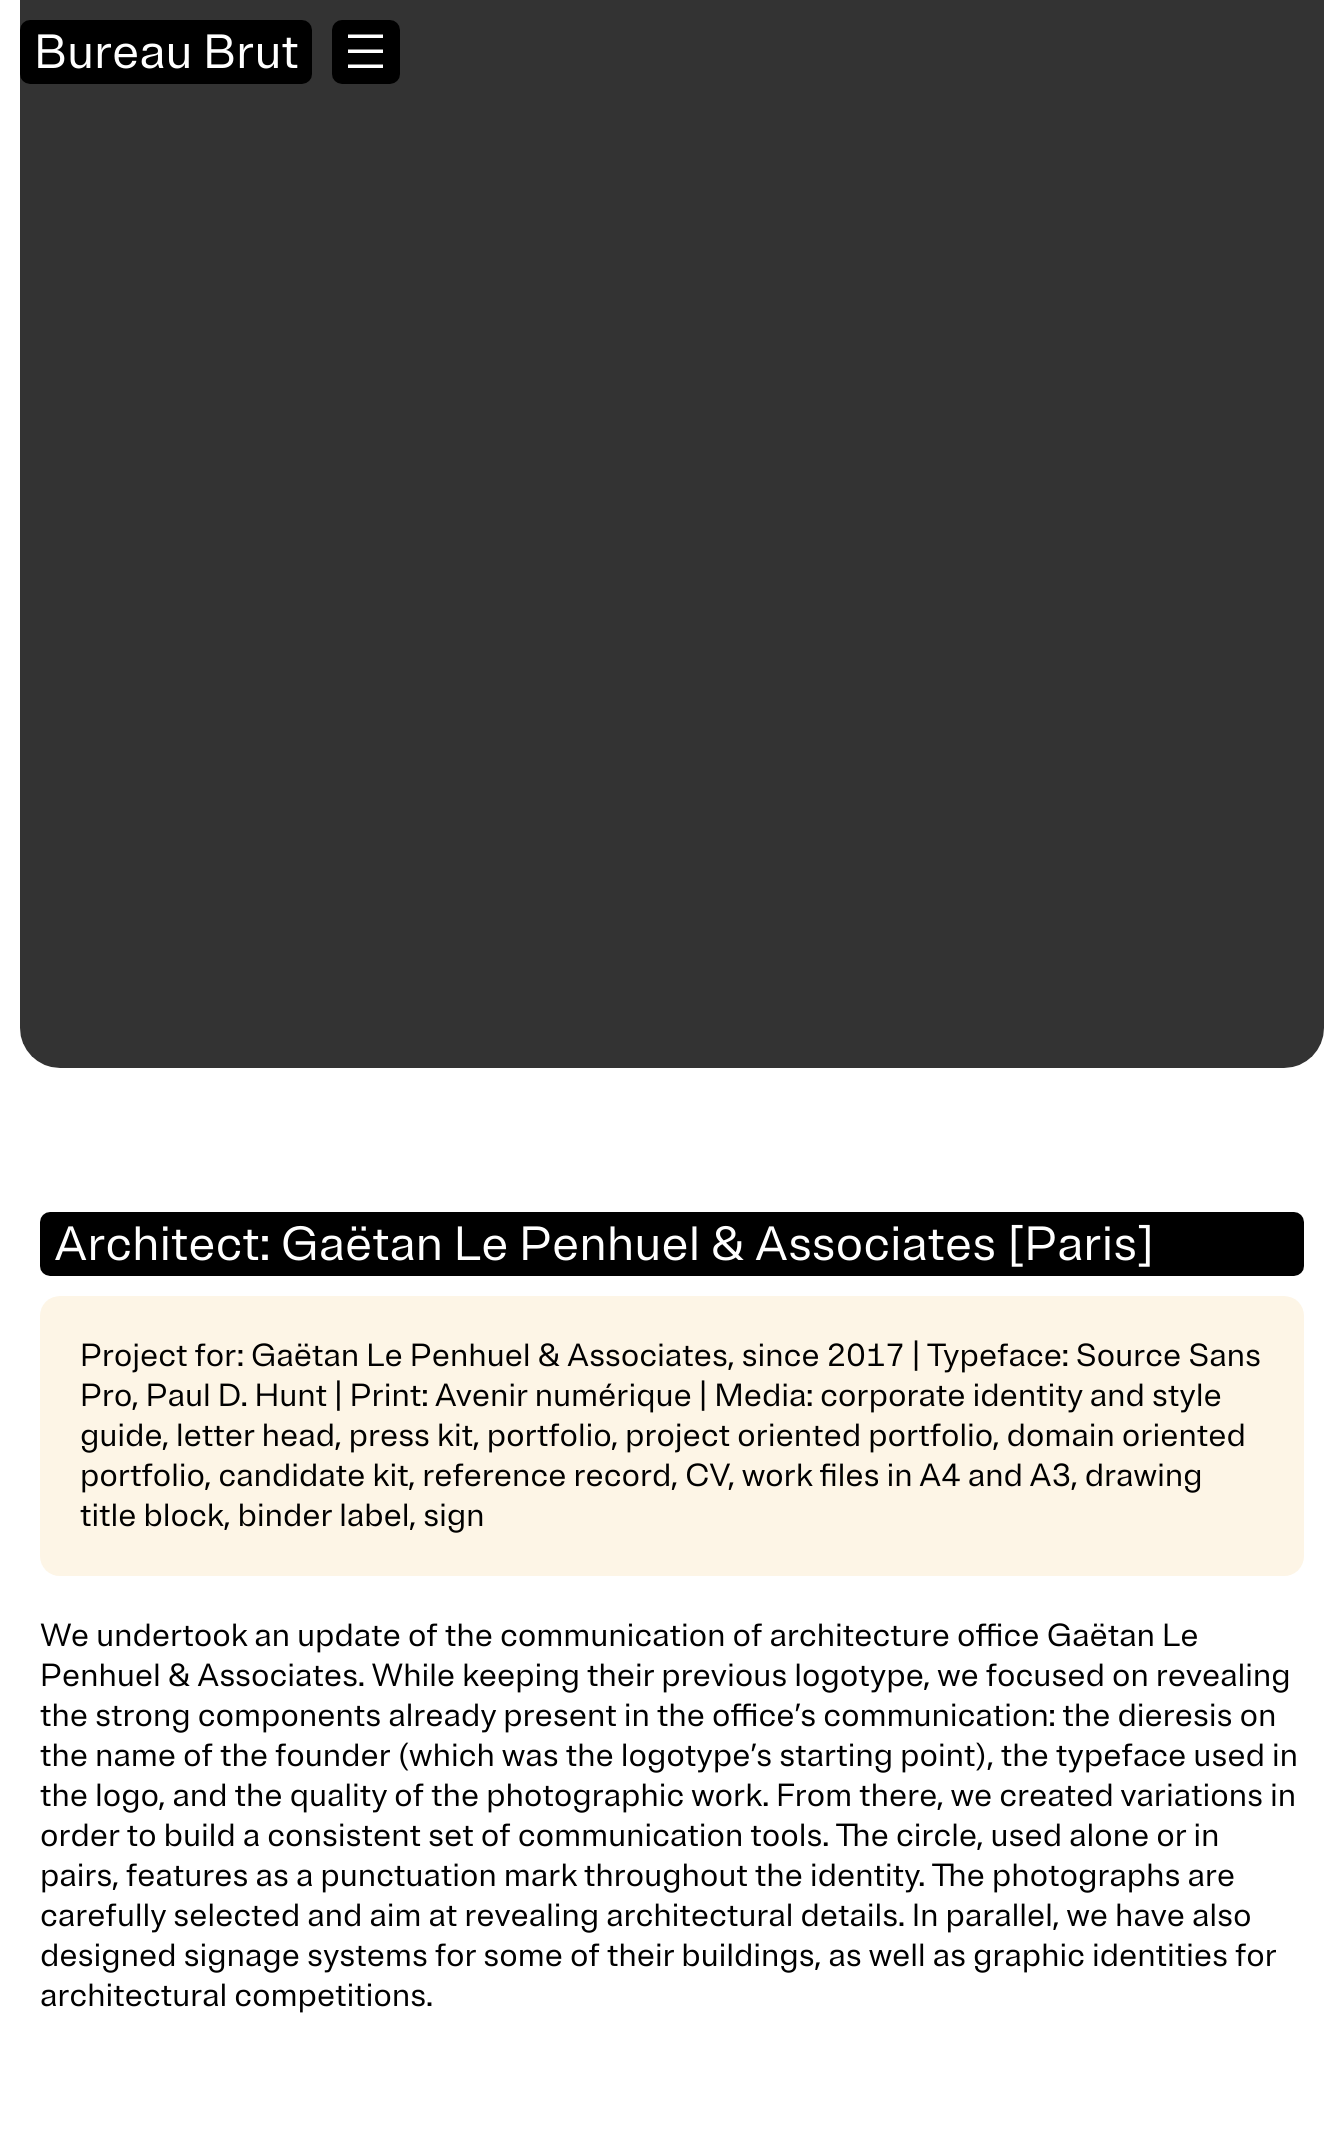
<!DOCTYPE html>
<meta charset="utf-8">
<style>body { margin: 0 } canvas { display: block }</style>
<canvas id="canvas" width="1343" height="2133"></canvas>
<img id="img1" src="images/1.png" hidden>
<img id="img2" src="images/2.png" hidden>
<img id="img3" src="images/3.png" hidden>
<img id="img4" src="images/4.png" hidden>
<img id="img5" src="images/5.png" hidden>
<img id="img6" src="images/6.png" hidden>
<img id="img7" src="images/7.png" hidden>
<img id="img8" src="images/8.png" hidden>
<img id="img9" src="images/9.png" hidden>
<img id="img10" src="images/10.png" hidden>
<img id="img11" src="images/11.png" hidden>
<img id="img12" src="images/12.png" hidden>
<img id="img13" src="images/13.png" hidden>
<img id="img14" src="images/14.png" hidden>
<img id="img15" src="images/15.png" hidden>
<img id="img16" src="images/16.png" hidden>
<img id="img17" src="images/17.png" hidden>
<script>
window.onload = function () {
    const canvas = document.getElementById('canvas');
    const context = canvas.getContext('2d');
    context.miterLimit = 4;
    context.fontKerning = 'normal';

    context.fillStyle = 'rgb(255, 255, 255)';
    context.fillRect(0, 0, 1343, 2133);
    context.fillStyle = 'rgb(51, 51, 51)';
    context.beginPath();
    context.roundRect(20, -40, 1304, 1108, 40);
    context.fill();
    context.fillStyle = 'rgb(0, 0, 0)';
    context.beginPath();
    context.roundRect(40, 1212, 1264, 64, 10);
    context.fill();
    context.drawImage(document.getElementById('img1'), 55, 1224, 1095, 43);
    context.fillStyle = 'rgb(253, 245, 230)';
    context.beginPath();
    context.roundRect(40, 1296, 1264, 280, 20);
    context.fill();
    context.drawImage(document.getElementById('img2'), 82, 1340, 1178, 33);
    context.drawImage(document.getElementById('img3'), 82, 1380, 1139, 33);
    context.drawImage(document.getElementById('img4'), 81, 1423, 1163, 30);
    context.drawImage(document.getElementById('img5'), 82, 1463, 1119, 30);
    context.drawImage(document.getElementById('img6'), 80, 1503, 403, 30);
    context.drawImage(document.getElementById('img7'), 40, 1623, 1157, 30);
    context.drawImage(document.getElementById('img8'), 42, 1663, 1247, 30);
    context.drawImage(document.getElementById('img9'), 40, 1703, 1235, 30);
    context.drawImage(document.getElementById('img10'), 40, 1742, 1256, 31);
    context.drawImage(document.getElementById('img11'), 40, 1783, 1254, 30);
    context.drawImage(document.getElementById('img12'), 41, 1823, 1177, 27);
    context.drawImage(document.getElementById('img13'), 42, 1863, 1192, 30);
    context.drawImage(document.getElementById('img14'), 41, 1903, 1209, 30);
    context.drawImage(document.getElementById('img15'), 41, 1943, 1235, 30);
    context.drawImage(document.getElementById('img16'), 41, 1983, 391, 30);
    context.fillStyle = 'rgb(0, 0, 0)';
    context.beginPath();
    context.roundRect(20, 20, 292, 64, 10);
    context.fill();
    context.drawImage(document.getElementById('img17'), 38, 34, 260, 35);
    context.beginPath();
    context.roundRect(332, 20, 68, 64, 10);
    context.fill();
    context.fillStyle = 'rgb(255, 255, 255)';
    context.beginPath();
    context.moveTo(348, 34.5);
    context.lineTo(383, 34.5);
    context.lineTo(383, 38);
    context.lineTo(348, 38);
    context.closePath();
    context.moveTo(348, 49.5);
    context.lineTo(383, 49.5);
    context.lineTo(383, 53);
    context.lineTo(348, 53);
    context.closePath();
    context.moveTo(348, 64.5);
    context.lineTo(383, 64.5);
    context.lineTo(383, 68);
    context.lineTo(348, 68);
    context.closePath();
    context.fill();
};
</script>
